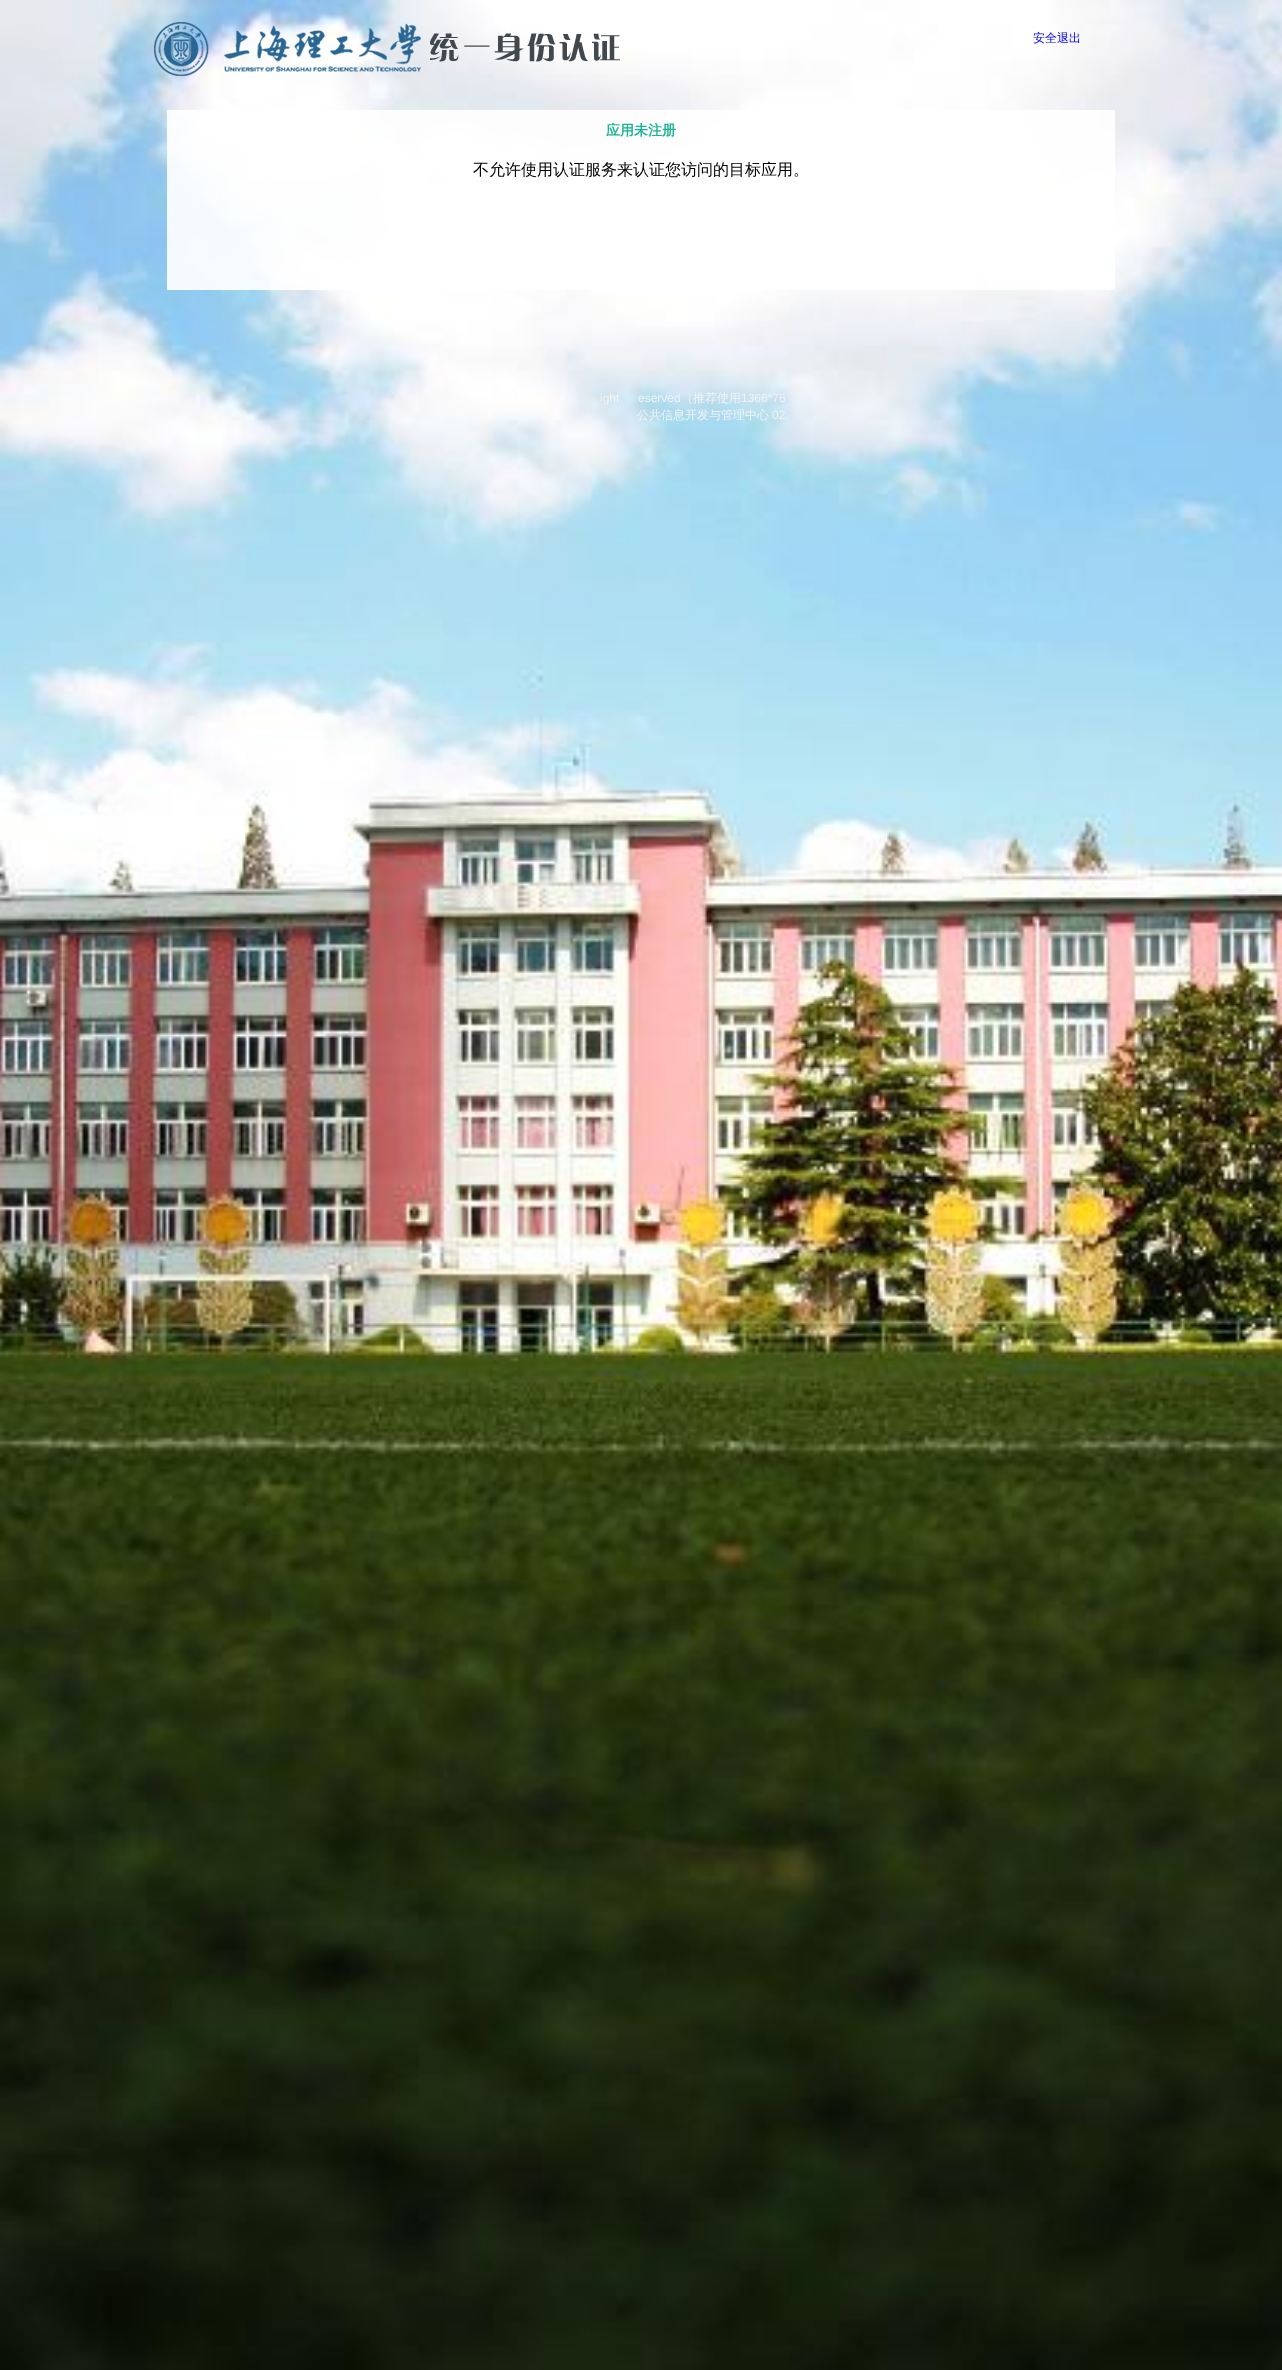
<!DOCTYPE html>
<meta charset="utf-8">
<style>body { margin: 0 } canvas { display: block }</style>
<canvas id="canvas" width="1282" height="2370"></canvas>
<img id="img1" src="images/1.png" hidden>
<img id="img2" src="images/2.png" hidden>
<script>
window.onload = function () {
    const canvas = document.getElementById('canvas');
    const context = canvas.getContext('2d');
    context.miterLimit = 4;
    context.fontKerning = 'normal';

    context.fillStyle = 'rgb(255, 255, 255)';
    context.fillRect(0, 0, 1282, 2370);
    context.drawImage(document.getElementById('img1'), 0, 0, 1282, 2370);
    context.drawImage(document.getElementById('img2'), 154, 22, 466, 54);
    context.fillStyle = 'rgba(255, 255, 255, 0.9)';
    context.fillRect(167, 110, 948, 180);
    context.font = '500 12px WenQuanYi Zen Hei';
    context.fillStyle = 'rgb(0, 0, 238)';
    context.fillText('安全退出', 1033, 42);
    context.font = 'bold 14px WenQuanYi Zen Hei';
    context.fillStyle = 'rgb(26, 179, 148)';
    context.fillText('应用未注册', 606, 135);
    context.font = '500 16px WenQuanYi Zen Hei';
    context.fillStyle = 'rgb(0, 0, 0)';
    context.fillText('不允许使用认证服务来认证您访问的目标应用。', 473, 175);
    context.font = '12px Liberation Sans';
    context.fillStyle = 'rgb(243, 243, 243)';
    context.fillText('ight', 600, 402);
    context.fillText('eserved', 638, 402);
    context.font = '500 12px WenQuanYi Zen Hei';
    context.fillText('（推荐使用', 681, 402);
    context.font = '12px Liberation Sans';
    context.fillText('1366*76', 741, 402);
    context.font = '500 12px WenQuanYi Zen Hei';
    context.fillText('公共信息开发与管理中心', 637, 419);
    context.font = '12px Liberation Sans';
    context.fillText('02', 772, 419);
};
</script>
